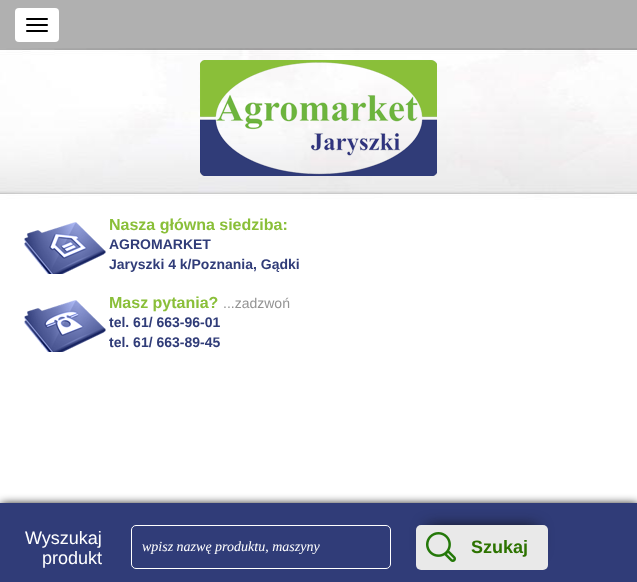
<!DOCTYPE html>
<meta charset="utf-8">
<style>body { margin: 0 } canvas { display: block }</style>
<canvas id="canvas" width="637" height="582"></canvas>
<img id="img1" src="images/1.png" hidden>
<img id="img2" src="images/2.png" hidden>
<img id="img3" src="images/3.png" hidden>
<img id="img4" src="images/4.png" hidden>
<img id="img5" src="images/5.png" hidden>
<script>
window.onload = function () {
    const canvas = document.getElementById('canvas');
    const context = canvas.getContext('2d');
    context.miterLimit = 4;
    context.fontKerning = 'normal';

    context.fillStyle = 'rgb(235, 235, 235)';
    context.fillRect(0, 0, 637, 582);
    context.drawImage(document.getElementById('img1'), 0, 48, 637, 455);
    context.fillStyle = 'rgba(0, 0, 0, 0.25)';
    context.fillRect(0, 0, 637, 50);
    context.fillStyle = 'rgb(255, 255, 255)';
    context.beginPath();
    context.roundRect(15, 8, 44, 34, 4);
    context.fill();
    context.fillStyle = 'rgb(0, 0, 0)';
    context.beginPath();
    context.roundRect(26, 18, 22, 2, 1);
    context.fill();
    context.beginPath();
    context.roundRect(26, 24, 22, 2, 1);
    context.fill();
    context.beginPath();
    context.roundRect(26, 30, 22, 2, 1);
    context.fill();
    context.drawImage(document.getElementById('img2'), 200, 60, 237, 116);
    context.drawImage(document.getElementById('img3'), 24, 222, 82, 52);
    context.drawImage(document.getElementById('img4'), 24, 300, 82, 52);
    context.filter = 'blur(5px)';
    context.beginPath();
    context.rect(1, 504, 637, 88);
    context.fill();
    context.filter = 'none';
    context.fillStyle = 'rgb(48, 60, 120)';
    context.fillRect(0, 503, 637, 79);
    context.beginPath();
    context.roundRect(131.5, 525.5, 259, 43, 4.5);
    context.strokeStyle = 'rgb(255, 255, 255)';
    context.stroke();
    context.fillStyle = 'rgb(14, 14, 14)';
    context.filter = 'blur(7.5px)';
    context.beginPath();
    context.rect(427, 527, 110, 23);
    context.fill();
    context.filter = 'none';
    context.fillStyle = 'rgb(233, 233, 233)';
    context.beginPath();
    context.roundRect(416, 525, 132, 45, 5);
    context.fill();
    context.drawImage(document.getElementById('img5'), 426, 532, 30, 30);
    context.font = 'bold 16px Liberation Sans';
    context.fillStyle = 'rgb(138, 191, 57)';
    context.fillText('Nasza główna siedziba:', 109, 230);
    context.font = 'bold 14px Liberation Sans';
    context.fillStyle = 'rgb(48, 60, 120)';
    context.fillText('AGROMARKET', 109, 249);
    context.fillText('Jaryszki 4 k/Poznania, Gądki', 109, 269);
    context.font = 'bold 16px Liberation Sans';
    context.fillStyle = 'rgb(138, 191, 57)';
    context.fillText('Masz pytania?', 109, 308);
    context.font = '14px Liberation Sans';
    context.fillStyle = 'rgb(147, 147, 147)';
    context.fillText('...zadzwoń', 223, 308);
    context.font = 'bold 14px Liberation Sans';
    context.fillStyle = 'rgb(48, 60, 120)';
    context.fillText('tel. 61/ 663-96-01', 109, 327);
    context.fillText('tel. 61/ 663-89-45', 109, 347);
    context.font = '18px Liberation Sans';
    context.fillStyle = 'rgb(255, 255, 255)';
    context.fillText('Wyszukaj', 25, 544);
    context.fillText('produkt', 42, 564);
    context.font = 'italic 14px Liberation Serif';
    context.fillText('wpisz nazwę produktu, maszyny', 142, 551);
    context.font = 'bold 18px Liberation Sans';
    context.fillStyle = 'rgb(45, 115, 0)';
    context.fillText('Szukaj', 471, 553);
};
</script>
